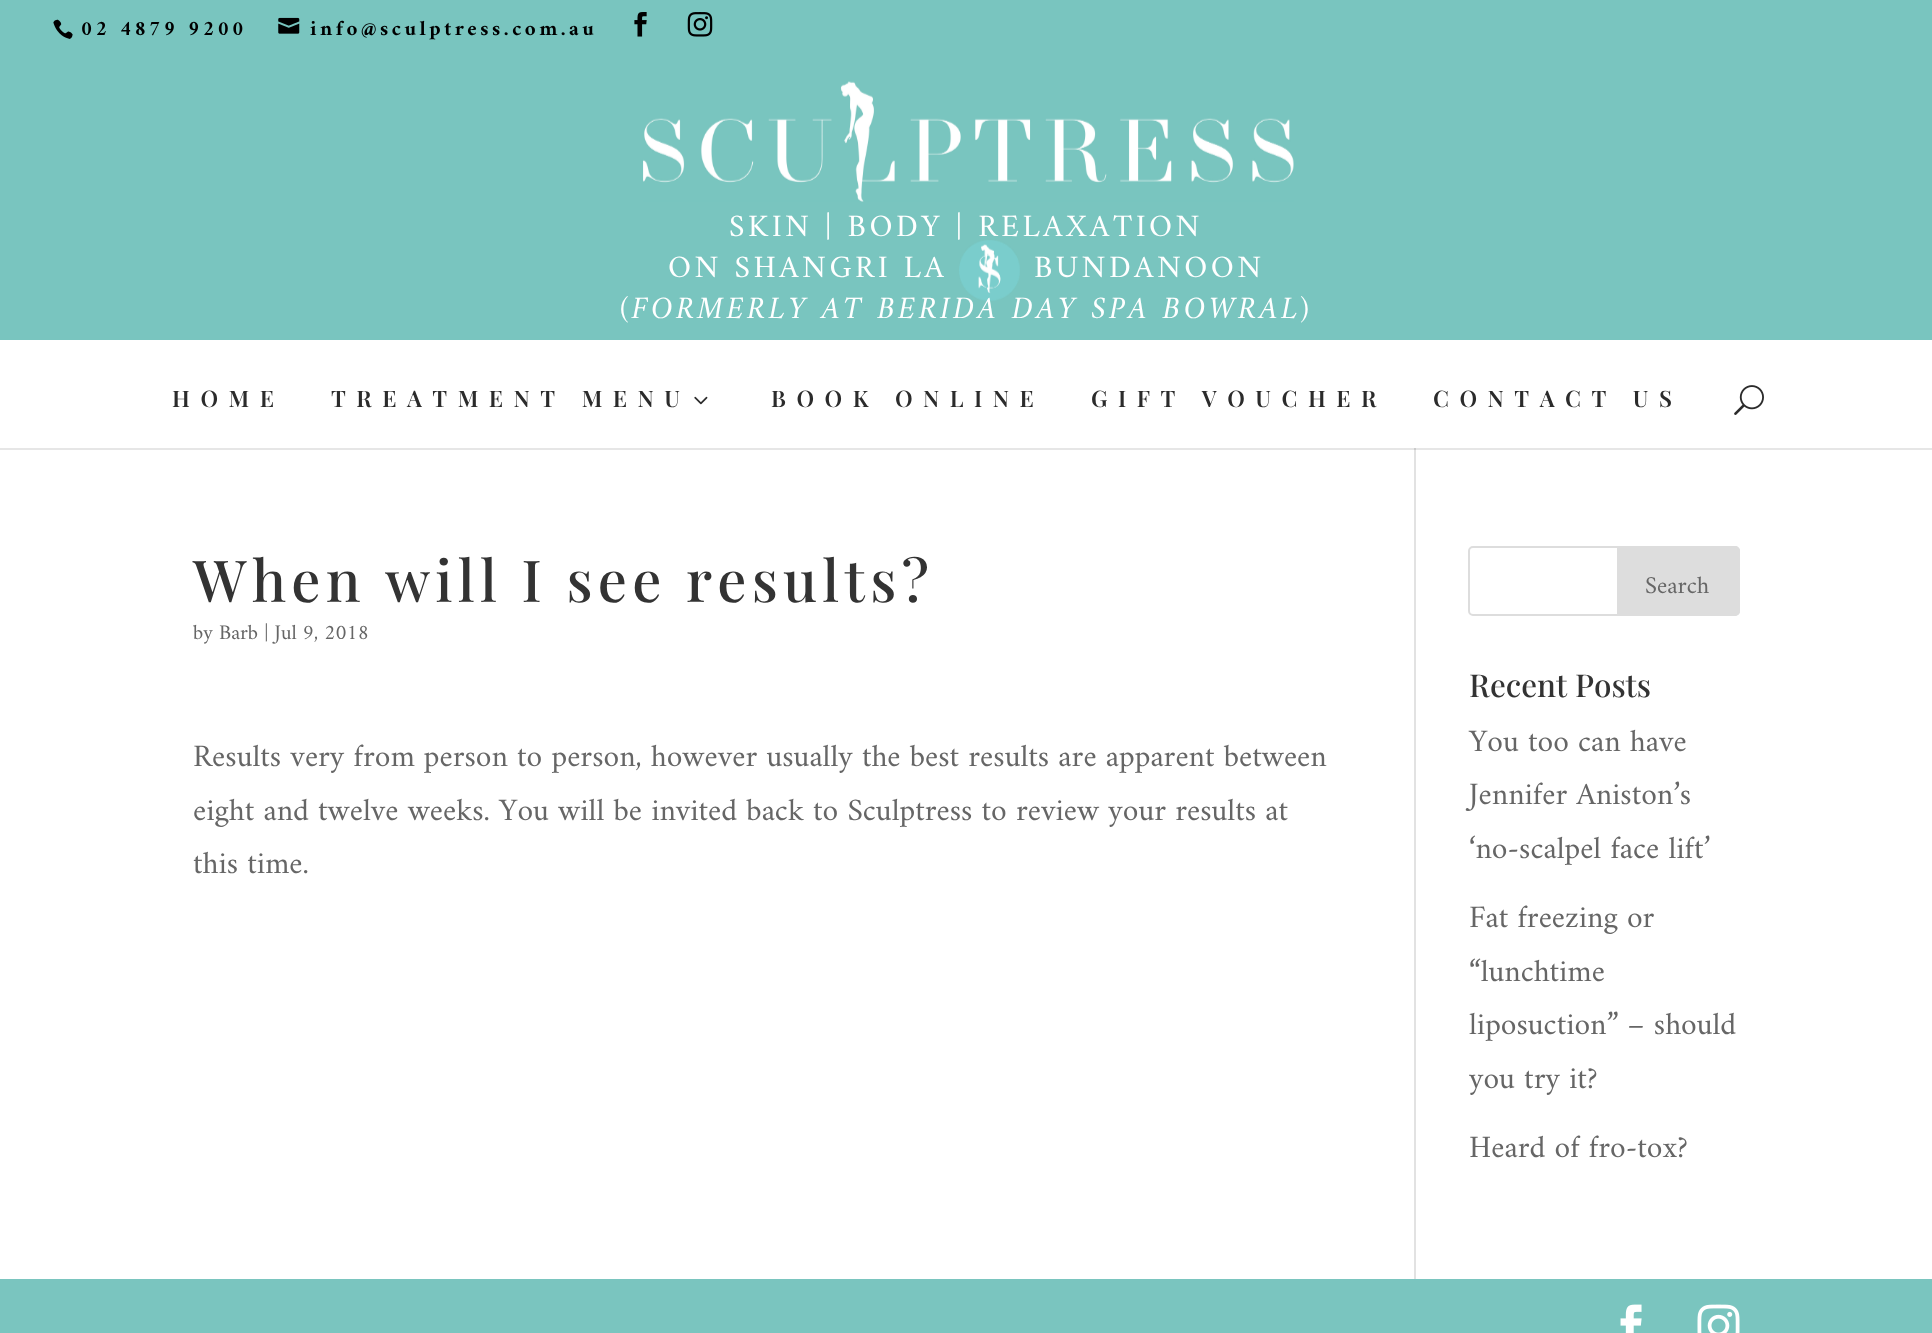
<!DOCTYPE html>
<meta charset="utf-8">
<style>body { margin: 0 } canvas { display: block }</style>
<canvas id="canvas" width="1932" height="1333"></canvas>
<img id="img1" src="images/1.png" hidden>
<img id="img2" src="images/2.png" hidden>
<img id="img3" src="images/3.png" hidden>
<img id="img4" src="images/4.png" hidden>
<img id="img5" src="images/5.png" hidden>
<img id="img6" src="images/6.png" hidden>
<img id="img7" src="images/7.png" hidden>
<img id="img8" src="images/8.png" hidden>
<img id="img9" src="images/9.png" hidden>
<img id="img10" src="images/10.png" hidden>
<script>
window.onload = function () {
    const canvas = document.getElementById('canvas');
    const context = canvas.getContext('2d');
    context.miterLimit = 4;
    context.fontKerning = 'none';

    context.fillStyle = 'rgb(255, 255, 255)';
    context.fillRect(0, 0, 1932, 1333);
    context.fillStyle = 'rgb(230, 230, 230)';
    context.fillRect(0, 448, 1932, 2);
    context.fillStyle = 'rgb(121, 197, 191)';
    context.fillRect(0, 0, 1932, 340);
    context.drawImage(document.getElementById('img1'), 53, 19, 20, 20);
    context.drawImage(document.getElementById('img2'), 278, 17, 22, 17);
    context.drawImage(document.getElementById('img3'), 634, 12, 13, 25);
    context.drawImage(document.getElementById('img4'), 687, 12, 26, 25);
    context.drawImage(document.getElementById('img5'), 643, 81, 651, 121);
    context.drawImage(document.getElementById('img6'), 959, 240, 61, 61);
    context.fillStyle = 'rgb(226, 226, 226)';
    context.fillRect(1414, 445, 2, 834);
    context.fillStyle = 'rgb(255, 255, 255)';
    context.fillRect(1414, 445, 2, 3);
    context.drawImage(document.getElementById('img7'), 694, 396, 14, 9);
    context.drawImage(document.getElementById('img8'), 1734, 385, 30, 30);
    context.fillStyle = 'rgb(203, 203, 203)';
    context.fillRect(1414, 448, 2, 2);
    context.beginPath();
    context.roundRect(1469, 547, 270, 68, 4);
    context.strokeStyle = 'rgb(221, 221, 221)';
    context.lineWidth = 2;
    context.stroke();
    context.fillStyle = 'rgb(221, 221, 221)';
    context.beginPath();
    context.roundRect(1618, 547, 121, 68, [0, 4, 4, 0]);
    context.fill();
    context.stroke();
    context.fillStyle = 'rgb(122, 197, 191)';
    context.fillRect(0, 1279, 1932, 54);
    context.drawImage(document.getElementById('img9'), 1620, 1304, 22, 29);
    context.drawImage(document.getElementById('img10'), 1697, 1304, 43, 29);
    context.letterSpacing = '3.5px';
    context.font = 'bold 21px Amiri';
    context.fillStyle = 'rgb(0, 0, 0)';
    context.fillText('02 4879 9200', 81, 35);
    context.fillText('info@sculptress.com.au', 310, 35);
    context.font = '31.5px Amiri';
    context.fillStyle = 'rgb(255, 255, 255)';
    context.fillText('SKIN | BODY | RELAXATION', 729, 236);
    context.fillText('ON SHANGRI LA', 668, 277);
    context.fillText('BUNDANOON', 1034, 277);
    context.font = 'italic 31.5px Amiri';
    context.fillText('(FORMERLY AT BERIDA DAY SPA BOWRAL)', 620, 318);
    context.letterSpacing = '10.5px';
    context.font = '600 22.75px Playfair Display';
    context.fillStyle = 'rgb(43, 43, 43)';
    context.fillText('HOME', 172, 407);
    context.fillText('TREATMENT MENU', 331, 407);
    context.fillText('BOOK ONLINE', 771, 407);
    context.fillText('GIFT VOUCHER', 1091, 407);
    context.fillText('CONTACT US', 1433, 407);
    context.letterSpacing = '5.25px';
    context.font = '500 57.75px Playfair Display';
    context.fillStyle = 'rgb(51, 51, 51)';
    context.fillText('When will I see results?', 193, 602);
    context.letterSpacing = '0px';
    context.font = '21px Amiri';
    context.fillStyle = 'rgb(102, 102, 102)';
    context.fillText('by Barb | Jul 9, 2018', 193, 639);
    context.font = '31.5px Amiri';
    context.fillText('Results very from person to person, however usually the best results are apparent between', 193, 766);
    context.fillText('eight and twelve weeks. You will be invited back to Sculptress to review your results at', 193, 820);
    context.fillText('this time.', 193, 873);
    context.font = '24.5px Amiri';
    context.fillText('Search', 1645, 593);
    context.font = '500 31.5px Playfair Display';
    context.fillStyle = 'rgb(51, 51, 51)';
    context.fillText('Recent Posts', 1469, 697);
    context.font = '31.5px Amiri';
    context.fillStyle = 'rgb(102, 102, 102)';
    context.fillText('You too can have', 1469, 751);
    context.fillText('Jennifer Aniston’s', 1469, 804);
    context.fillText('‘no-scalpel face lift’', 1469, 858);
    context.fillText('Fat freezing or', 1469, 927);
    context.fillText('“lunchtime', 1469, 981);
    context.fillText('liposuction” – should', 1469, 1034);
    context.fillText('you try it?', 1469, 1088);
    context.fillText('Heard of fro-tox?', 1469, 1157);
};
</script>
